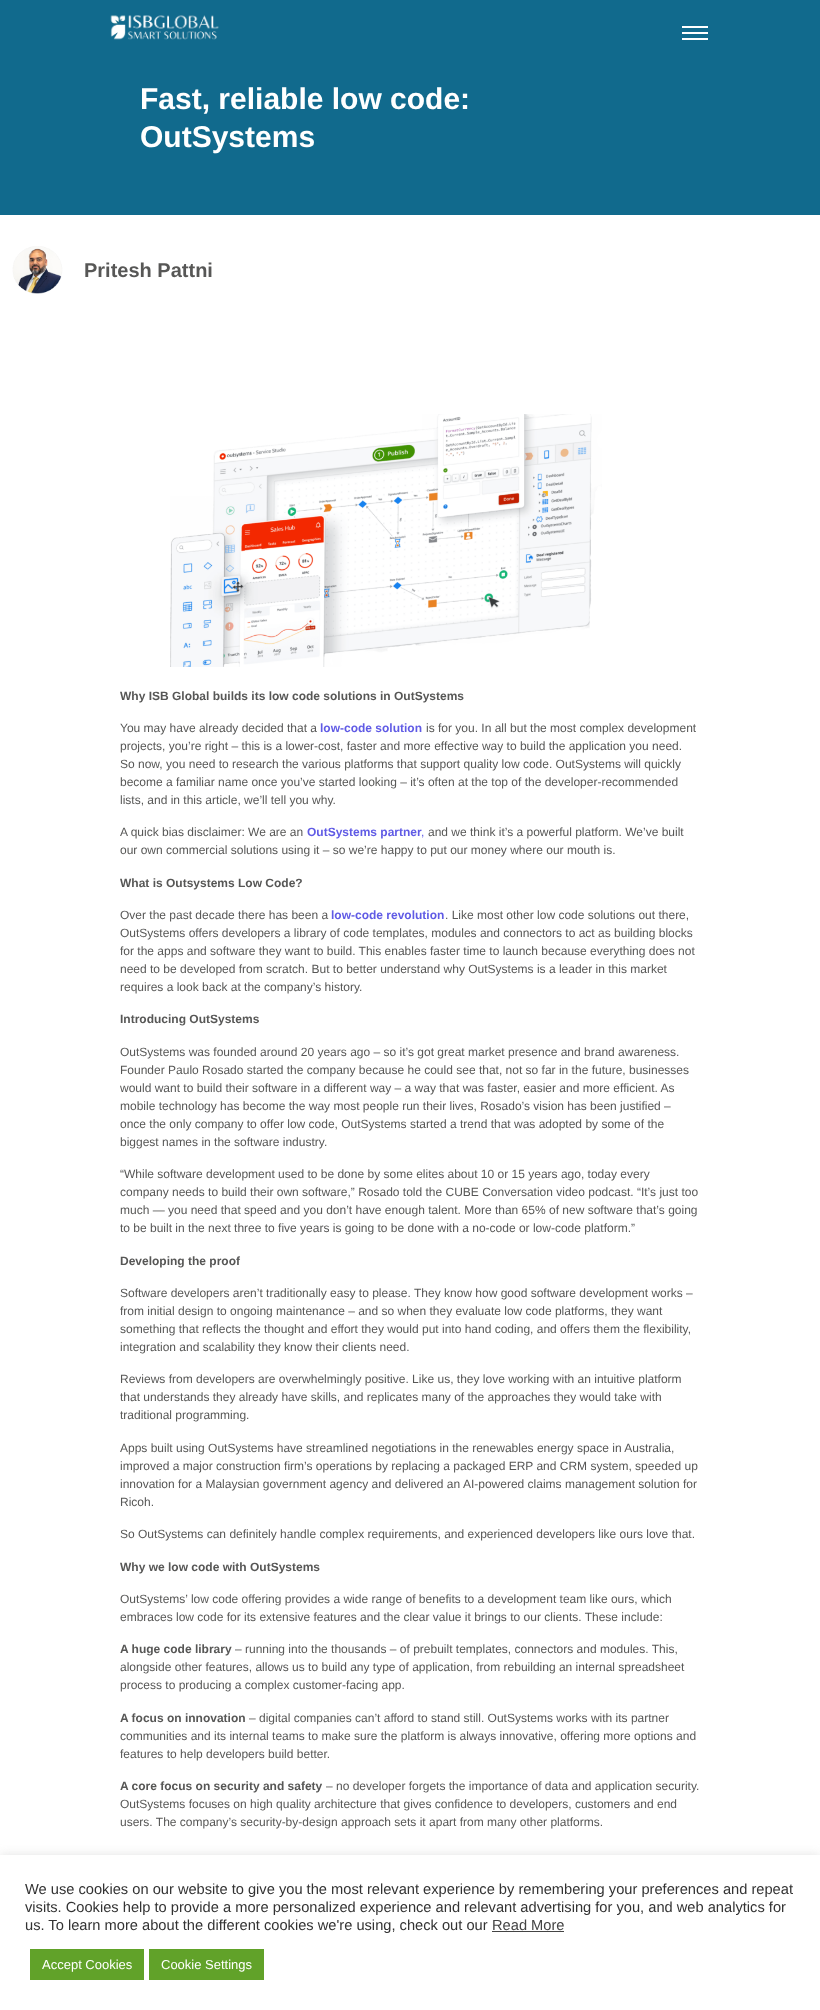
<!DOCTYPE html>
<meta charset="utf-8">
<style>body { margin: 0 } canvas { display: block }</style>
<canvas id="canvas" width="820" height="2010"></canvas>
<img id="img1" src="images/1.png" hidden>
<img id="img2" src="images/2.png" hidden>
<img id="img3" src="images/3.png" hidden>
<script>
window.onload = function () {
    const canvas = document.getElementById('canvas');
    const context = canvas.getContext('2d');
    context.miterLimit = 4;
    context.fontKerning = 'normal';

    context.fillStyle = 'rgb(255, 255, 255)';
    context.fillRect(0, 0, 820, 2010);
    context.fillStyle = 'rgb(17, 106, 141)';
    context.fillRect(0, 0, 820, 215);
    context.drawImage(document.getElementById('img1'), 110, 15, 109, 25);
    context.fillStyle = 'rgb(255, 255, 255)';
    context.fillRect(682, 26, 26, 2);
    context.fillRect(682, 32, 26, 2);
    context.fillRect(682, 38, 26, 2);
    context.drawImage(document.getElementById('img2'), 12, 246, 51, 48);
    context.drawImage(document.getElementById('img3'), 170, 414, 432, 253);
    context.fillStyle = 'rgba(172, 171, 171, 0.3)';
    context.filter = 'blur(5px)';
    context.beginPath();
    context.rect(0, 1854, 820, 155);
    context.fill();
    context.filter = 'none';
    context.fillStyle = 'rgb(255, 255, 255)';
    context.fillRect(0, 1855, 820, 155);
    context.fillStyle = 'rgb(68, 68, 68)';
    context.fillRect(492, 1931, 72, 1);
    context.fillStyle = 'rgb(97, 162, 41)';
    context.fillRect(30, 1949, 114, 31);
    context.fillRect(149, 1949, 115, 31);
    context.font = 'bold 30px Liberation Sans';
    context.fillStyle = 'rgb(255, 255, 255)';
    context.fillText('Fast, reliable low code:', 140, 109);
    context.fillText('OutSystems', 140, 147);
    context.font = 'bold 20px Liberation Sans';
    context.fillStyle = 'rgb(87, 87, 86)';
    context.fillText('Pritesh Pattni', 84, 277);
    context.font = 'bold 12px Liberation Sans';
    context.fillText('Why ISB Global builds its low code solutions in OutSystems', 120, 700);
    context.font = '12px Liberation Sans';
    context.fillText('You may have already decided that a', 120, 732);
    context.font = 'bold 12px Liberation Sans';
    context.fillStyle = 'rgb(96, 91, 229)';
    context.fillText('low-code solution', 320, 732);
    context.font = '12px Liberation Sans';
    context.fillStyle = 'rgb(87, 87, 86)';
    context.fillText('is for you. In all but the most complex development', 426, 732);
    context.fillText('projects, you’re right – this is a lower-cost, faster and more effective way to build the application you need.', 120, 750);
    context.fillText('So now, you need to research the various platforms that support quality low code. OutSystems will quickly', 120, 768);
    context.fillText('become a familiar name once you’ve started looking – it’s often at the top of the developer-recommended', 120, 786);
    context.fillText('lists, and in this article, we’ll tell you why.', 120, 804);
    context.fillText('A quick bias disclaimer: We are an', 120, 836);
    context.font = 'bold 12px Liberation Sans';
    context.fillStyle = 'rgb(96, 91, 229)';
    context.fillText('OutSystems partner', 307, 836);
    context.font = '12px Liberation Sans';
    context.fillText(',', 421, 836);
    context.fillStyle = 'rgb(87, 87, 86)';
    context.fillText('and we think it’s a powerful platform. We’ve built', 428, 836);
    context.fillText('our own commercial solutions using it – so we’re happy to put our money where our mouth is.', 120, 854);
    context.font = 'bold 12px Liberation Sans';
    context.fillText('What is Outsystems Low Code?', 120, 887);
    context.font = '12px Liberation Sans';
    context.fillText('Over the past decade there has been a', 120, 919);
    context.font = 'bold 12px Liberation Sans';
    context.fillStyle = 'rgb(96, 91, 229)';
    context.fillText('low-code revolution', 331, 919);
    context.font = '12px Liberation Sans';
    context.fillStyle = 'rgb(87, 87, 86)';
    context.fillText('. Like most other low code solutions out there,', 445, 919);
    context.fillText('OutSystems offers developers a library of code templates, modules and connectors to act as building blocks', 120, 937);
    context.fillText('for the apps and software they want to build. This enables faster time to launch because everything does not', 120, 955);
    context.fillText('need to be developed from scratch. But to better understand why OutSystems is a leader in this market', 120, 973);
    context.fillText('requires a look back at the company’s history.', 120, 991);
    context.font = 'bold 12px Liberation Sans';
    context.fillText('Introducing OutSystems', 120, 1023);
    context.font = '12px Liberation Sans';
    context.fillText('OutSystems was founded around 20 years ago – so it’s got great market presence and brand awareness.', 120, 1056);
    context.fillText('Founder Paulo Rosado started the company because he could see that, not so far in the future, businesses', 120, 1074);
    context.fillText('would want to build their software in a different way – a way that was faster, easier and more efficient. As', 120, 1092);
    context.fillText('mobile technology has become the way most people run their lives, Rosado’s vision has been justified –', 120, 1110);
    context.fillText('once the only company to offer low code, OutSystems started a trend that was adopted by some of the', 120, 1128);
    context.fillText('biggest names in the software industry.', 120, 1146);
    context.fillText('“While software development used to be done by some elites about 10 or 15 years ago, today every', 120, 1178);
    context.fillText('company needs to build their own software,” Rosado told the CUBE Conversation video podcast. “It’s just too', 120, 1196);
    context.fillText('much — you need that speed and you don’t have enough talent. More than 65% of new software that’s going', 120, 1214);
    context.fillText('to be built in the next three to five years is going to be done with a no-code or low-code platform.”', 120, 1232);
    context.font = 'bold 12px Liberation Sans';
    context.fillText('Developing the proof', 120, 1265);
    context.font = '12px Liberation Sans';
    context.fillText('Software developers aren’t traditionally easy to please. They know how good software development works –', 120, 1297);
    context.fillText('from initial design to ongoing maintenance – and so when they evaluate low code platforms, they want', 120, 1315);
    context.fillText('something that reflects the thought and effort they would put into hand coding, and offers them the flexibility,', 120, 1333);
    context.fillText('integration and scalability they know their clients need.', 120, 1351);
    context.fillText('Reviews from developers are overwhelmingly positive. Like us, they love working with an intuitive platform', 120, 1383);
    context.fillText('that understands they already have skills, and replicates many of the approaches they would take with', 120, 1401);
    context.fillText('traditional programming.', 120, 1419);
    context.fillText('Apps built using OutSystems have streamlined negotiations in the renewables energy space in Australia,', 120, 1452);
    context.fillText('improved a major construction firm’s operations by replacing a packaged ERP and CRM system, speeded up', 120, 1470);
    context.fillText('innovation for a Malaysian government agency and delivered an AI-powered claims management solution for', 120, 1488);
    context.fillText('Ricoh.', 120, 1506);
    context.fillText('So OutSystems can definitely handle complex requirements, and experienced developers like ours love that.', 120, 1538);
    context.font = 'bold 12px Liberation Sans';
    context.fillText('Why we low code with OutSystems', 120, 1571);
    context.font = '12px Liberation Sans';
    context.fillText('OutSystems’ low code offering provides a wide range of benefits to a development team like ours, which', 120, 1603);
    context.fillText('embraces low code for its extensive features and the clear value it brings to our clients. These include:', 120, 1621);
    context.font = 'bold 12px Liberation Sans';
    context.fillText('A huge code library', 120, 1653);
    context.font = '12px Liberation Sans';
    context.fillText('– running into the thousands – of prebuilt templates, connectors and modules. This,', 235, 1653);
    context.fillText('alongside other features, allows us to build any type of application, from rebuilding an internal spreadsheet', 120, 1671);
    context.fillText('process to producing a complex customer-facing app.', 120, 1689);
    context.font = 'bold 12px Liberation Sans';
    context.fillText('A focus on innovation', 120, 1722);
    context.font = '12px Liberation Sans';
    context.fillText('– digital companies can’t afford to stand still. OutSystems works with its partner', 249, 1722);
    context.fillText('communities and its internal teams to make sure the platform is always innovative, offering more options and', 120, 1740);
    context.fillText('features to help developers build better.', 120, 1758);
    context.font = 'bold 12px Liberation Sans';
    context.fillText('A core focus on security and safety', 120, 1790);
    context.font = '12px Liberation Sans';
    context.fillText('– no developer forgets the importance of data and application security.', 326, 1790);
    context.fillText('OutSystems focuses on high quality architecture that gives confidence to developers, customers and end', 120, 1808);
    context.fillText('users. The company’s security-by-design approach sets it apart from many other platforms.', 120, 1826);
    context.font = '14.67px Liberation Sans';
    context.fillStyle = 'rgb(51, 51, 51)';
    context.fillText('We use cookies on our website to give you the most relevant experience by remembering your preferences and repeat', 25, 1894);
    context.fillText('visits. Cookies help to provide a more personalized experience and relevant advertising for you, and web analytics for', 25, 1912);
    context.fillText('us. To learn more about the different cookies we\'re using, check out our', 25, 1930);
    context.fillStyle = 'rgb(68, 68, 68)';
    context.fillText('Read More', 492, 1930);
    context.font = '13px Liberation Sans';
    context.fillStyle = 'rgb(255, 255, 255)';
    context.fillText('Accept Cookies', 42, 1969);
    context.fillText('Cookie Settings', 161, 1969);
};
</script>
